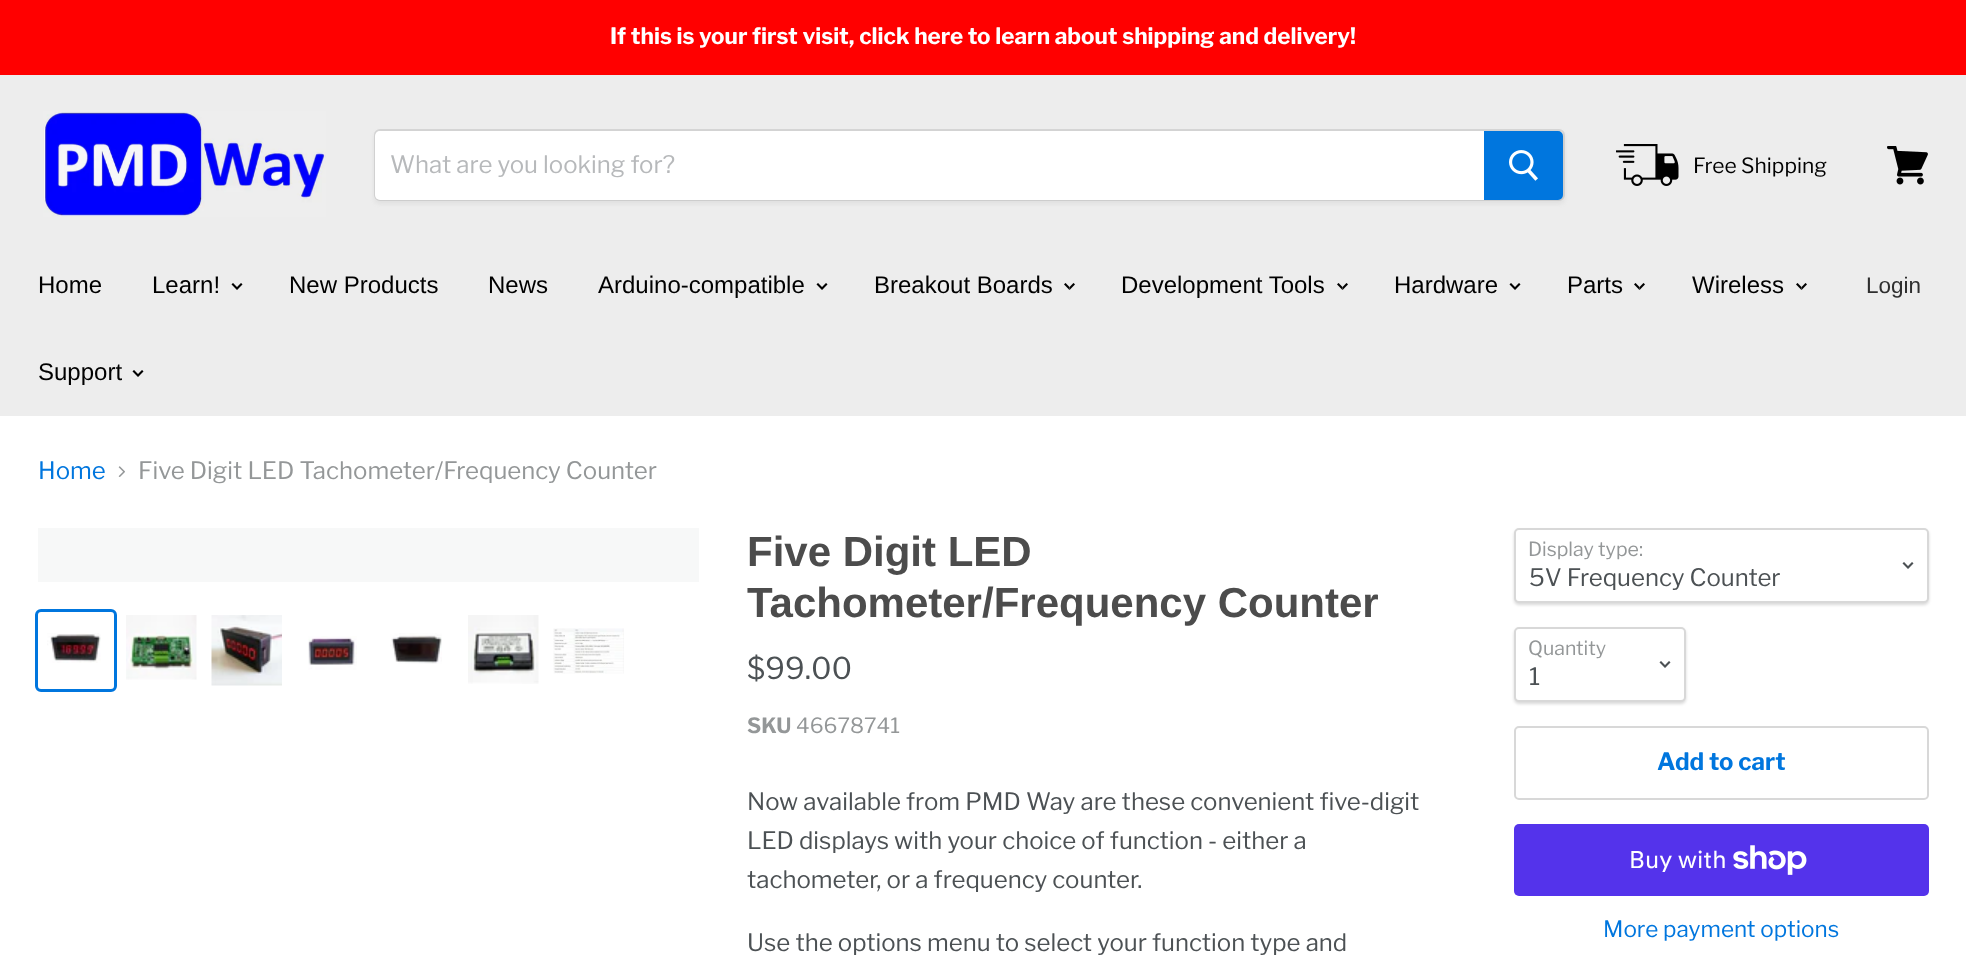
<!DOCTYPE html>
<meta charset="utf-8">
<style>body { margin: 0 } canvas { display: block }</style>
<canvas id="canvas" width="1966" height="973"></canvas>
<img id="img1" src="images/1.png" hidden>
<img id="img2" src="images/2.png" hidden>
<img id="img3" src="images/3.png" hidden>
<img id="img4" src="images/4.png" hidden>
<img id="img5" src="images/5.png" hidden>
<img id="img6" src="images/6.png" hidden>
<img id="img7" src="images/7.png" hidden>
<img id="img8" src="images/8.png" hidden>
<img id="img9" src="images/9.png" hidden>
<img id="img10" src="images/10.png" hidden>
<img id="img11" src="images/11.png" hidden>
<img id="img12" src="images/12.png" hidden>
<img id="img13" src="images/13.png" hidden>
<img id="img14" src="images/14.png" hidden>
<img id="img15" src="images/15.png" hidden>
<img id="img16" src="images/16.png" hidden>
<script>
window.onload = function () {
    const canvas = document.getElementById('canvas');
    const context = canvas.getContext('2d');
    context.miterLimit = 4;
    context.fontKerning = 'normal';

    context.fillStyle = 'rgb(255, 255, 255)';
    context.fillRect(0, 0, 1966, 973);
    context.fillStyle = 'rgb(255, 0, 0)';
    context.fillRect(0, 0, 1966, 75);
    context.fillStyle = 'rgb(237, 237, 237)';
    context.fillRect(0, 75, 1966, 341);
    context.drawImage(document.getElementById('img1'), 43, 111, 283, 106);
    context.fillStyle = 'rgba(127, 127, 127, 0.11)';
    context.filter = 'blur(2px)';
    context.beginPath();
    context.roundRect(374, 132, 1191, 72, 6);
    context.fill();
    context.filter = 'none';
    context.beginPath();
    context.roundRect(375, 130, 1189, 70, 5);
    context.strokeStyle = 'rgba(127, 127, 127, 0.2)';
    context.lineWidth = 2;
    context.stroke();
    context.fillStyle = 'rgb(255, 255, 255)';
    context.beginPath();
    context.roundRect(375, 131, 1109, 69, [5, 0, 0, 5]);
    context.fill();
    context.fillStyle = 'rgb(0, 118, 222)';
    context.beginPath();
    context.roundRect(1485, 132, 77, 67, [0, 4, 4, 0]);
    context.fill();
    context.strokeStyle = 'rgb(0, 118, 222)';
    context.stroke();
    context.drawImage(document.getElementById('img2'), 1509, 150, 29, 31);
    context.drawImage(document.getElementById('img3'), 1616, 144, 63, 42);
    context.drawImage(document.getElementById('img4'), 1887, 146, 41, 39);
    context.drawImage(document.getElementById('img5'), 231, 283, 12, 7);
    context.drawImage(document.getElementById('img5'), 816, 283, 12, 7);
    context.drawImage(document.getElementById('img6'), 1064, 283, 11, 7);
    context.drawImage(document.getElementById('img6'), 1337, 283, 11, 7);
    context.drawImage(document.getElementById('img5'), 1509, 283, 12, 7);
    context.drawImage(document.getElementById('img6'), 1634, 283, 11, 7);
    context.drawImage(document.getElementById('img6'), 1796, 283, 11, 7);
    context.drawImage(document.getElementById('img5'), 132, 370, 12, 7);
    context.drawImage(document.getElementById('img7'), 118, 466, 7, 11);
    context.fillStyle = 'rgb(247, 248, 248)';
    context.fillRect(38, 528, 661, 54);
    context.beginPath();
    context.roundRect(36.5, 610.5, 79, 80, 4.5);
    context.lineWidth = 3;
    context.stroke();
    context.drawImage(document.getElementById('img8'), 47, 633, 54, 30);
    context.drawImage(document.getElementById('img9'), 126, 615, 71, 65);
    context.drawImage(document.getElementById('img10'), 211, 615, 71, 71);
    context.drawImage(document.getElementById('img11'), 308, 636, 49, 34);
    context.drawImage(document.getElementById('img12'), 390, 633, 52, 31);
    context.drawImage(document.getElementById('img13'), 468, 615, 71, 69);
    context.drawImage(document.getElementById('img14'), 553, 628, 71, 46);
    context.fillStyle = 'rgba(0, 0, 0, 0.15)';
    context.filter = 'blur(1.5px)';
    context.beginPath();
    context.roundRect(1514, 530, 415, 75, 5);
    context.fill();
    context.filter = 'none';
    context.fillStyle = 'rgb(255, 255, 255)';
    context.beginPath();
    context.roundRect(1515, 529, 413, 73, 4);
    context.fill();
    context.strokeStyle = 'rgb(216, 216, 216)';
    context.lineWidth = 2;
    context.stroke();
    context.drawImage(document.getElementById('img15'), 1902, 562, 12, 7);
    context.fillStyle = 'rgba(0, 0, 0, 0.15)';
    context.filter = 'blur(1.5px)';
    context.beginPath();
    context.roundRect(1514, 629, 172, 75, 5);
    context.fill();
    context.filter = 'none';
    context.fillStyle = 'rgb(255, 255, 255)';
    context.beginPath();
    context.roundRect(1515, 628, 170, 73, 4);
    context.fill();
    context.stroke();
    context.drawImage(document.getElementById('img15'), 1659, 661, 12, 7);
    context.beginPath();
    context.roundRect(1515, 727, 413, 72, 4);
    context.stroke();
    context.fillStyle = 'rgb(84, 51, 235)';
    context.beginPath();
    context.roundRect(1514, 824, 415, 72, 5);
    context.fill();
    context.drawImage(document.getElementById('img16'), 1733, 845, 74, 30);
    context.font = 'bold 22.5px Libre Franklin';
    context.fillStyle = 'rgb(255, 255, 255)';
    context.fillText('If this is your first visit, click here to learn about shipping and delivery!', 610, 44);
    context.font = '24px Libre Franklin';
    context.fillStyle = 'rgb(183, 185, 187)';
    context.fillText('What are you looking for?', 390, 173);
    context.font = '21px Libre Franklin';
    context.fillStyle = 'rgb(0, 0, 0)';
    context.fillText('Free Shipping', 1693, 173);
    context.font = '24px Arimo';
    context.fillText('Home', 38, 293);
    context.fillText('Learn!', 152, 293);
    context.fillText('New Products', 289, 293);
    context.fillText('News', 488, 293);
    context.fillText('Arduino-compatible', 598, 293);
    context.fillText('Breakout Boards', 874, 293);
    context.fillText('Development Tools', 1121, 293);
    context.fillText('Hardware', 1394, 293);
    context.fillText('Parts', 1567, 293);
    context.fillText('Wireless', 1692, 293);
    context.fillText('Support', 38, 380);
    context.font = '22.5px Arimo';
    context.fillStyle = 'rgb(47, 47, 47)';
    context.fillText('Login', 1866, 293);
    context.font = '24px Libre Franklin';
    context.fillStyle = 'rgb(0, 118, 222)';
    context.fillText('Home', 38, 479);
    context.fillStyle = 'rgb(148, 151, 152)';
    context.fillText('Five Digit LED Tachometer/Frequency Counter', 138, 479);
    context.font = 'bold 42px Arimo';
    context.fillStyle = 'rgb(76, 76, 76)';
    context.fillText('Five Digit LED', 747, 566);
    context.fillText('Tachometer/Frequency Counter', 747, 617);
    context.font = '30px Libre Franklin';
    context.fillStyle = 'rgb(76, 81, 84)';
    context.fillText('$99.00', 747, 679);
    context.font = 'bold 21px Libre Franklin';
    context.fillStyle = 'rgb(148, 151, 152)';
    context.fillText('SKU', 747, 733);
    context.font = '21px Libre Franklin';
    context.fillText('46678741', 796, 733);
    context.font = '24px Libre Franklin';
    context.fillStyle = 'rgb(76, 81, 84)';
    context.fillText('Now available from PMD Way are these convenient five-digit', 747, 810);
    context.fillText('LED displays with your choice of function - either a', 747, 849);
    context.fillText('tachometer, or a frequency counter.', 747, 888);
    context.fillText('Use the options menu to select your function type and', 747, 951);
    context.font = '19.5px Libre Franklin';
    context.fillStyle = 'rgb(148, 151, 152)';
    context.fillText('Display type:', 1528, 556);
    context.font = '24px Libre Franklin';
    context.fillStyle = 'rgb(76, 81, 84)';
    context.fillText('5V Frequency Counter', 1529, 586);
    context.font = '19.5px Libre Franklin';
    context.fillStyle = 'rgb(148, 151, 152)';
    context.fillText('Quantity', 1528, 655);
    context.font = '24px Libre Franklin';
    context.fillStyle = 'rgb(76, 81, 84)';
    context.fillText('1', 1529, 685);
    context.font = 'bold 24px Libre Franklin';
    context.fillStyle = 'rgb(0, 118, 222)';
    context.fillText('Add to cart', 1657, 770);
    context.font = '24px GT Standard';
    context.fillStyle = 'rgb(255, 255, 255)';
    context.fillText('Buy with', 1629, 868);
    context.font = '22.5px Libre Franklin';
    context.fillStyle = 'rgb(0, 118, 222)';
    context.fillText('More payment options', 1603, 937);
};
</script>
